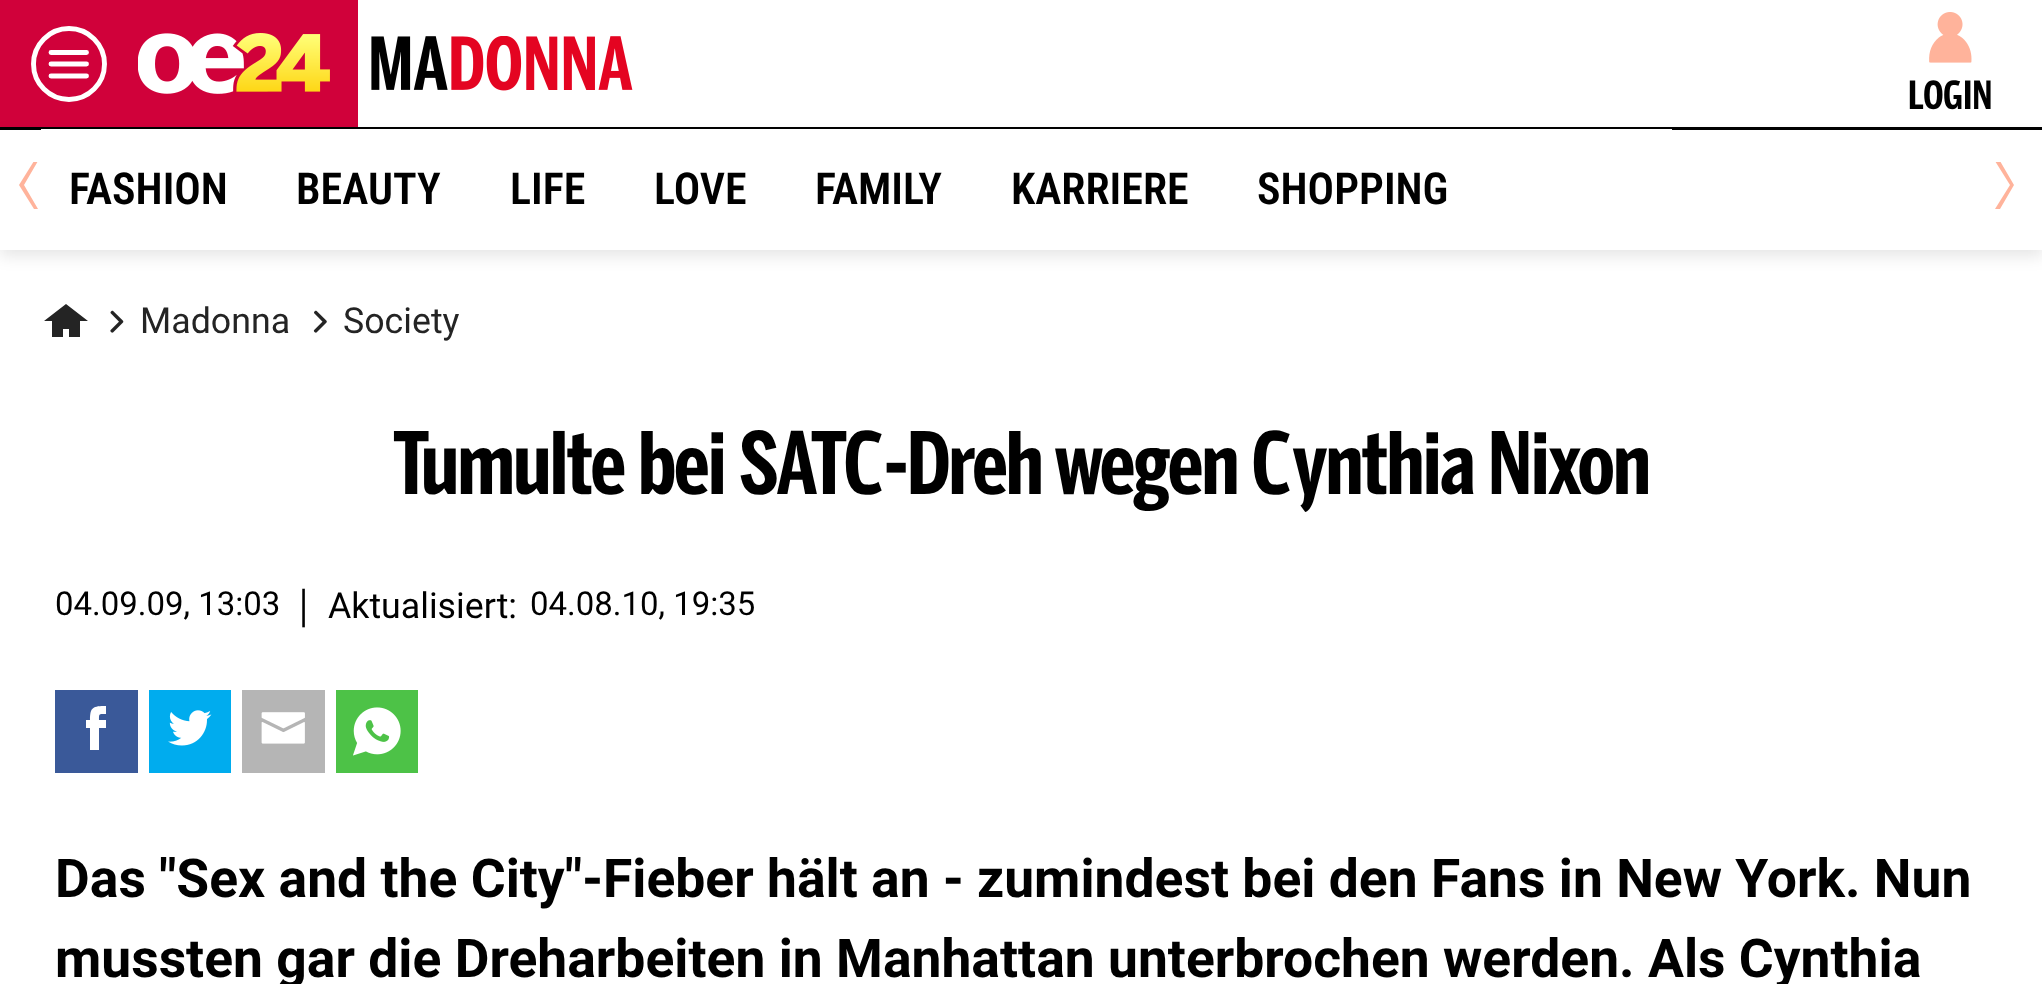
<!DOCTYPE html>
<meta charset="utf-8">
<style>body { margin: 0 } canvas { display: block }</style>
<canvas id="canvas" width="2042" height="984"></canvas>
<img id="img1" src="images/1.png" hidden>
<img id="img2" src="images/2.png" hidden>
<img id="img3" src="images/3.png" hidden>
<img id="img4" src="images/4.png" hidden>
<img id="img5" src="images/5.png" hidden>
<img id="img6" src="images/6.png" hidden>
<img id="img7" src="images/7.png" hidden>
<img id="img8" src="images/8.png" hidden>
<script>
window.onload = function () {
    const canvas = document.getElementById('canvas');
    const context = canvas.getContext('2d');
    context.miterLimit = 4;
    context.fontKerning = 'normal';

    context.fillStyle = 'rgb(255, 255, 255)';
    context.fillRect(0, 0, 2042, 984);
    context.fillStyle = 'rgb(0, 0, 0)';
    context.fillRect(0, 127, 2042, 3);
    context.fillStyle = 'rgb(208, 1, 58)';
    context.fillRect(0, 0, 358, 127);
    context.beginPath();
    context.arc(69, 64, 35.5, 0, 2 * Math.PI);
    context.strokeStyle = 'rgb(255, 255, 255)';
    context.lineWidth = 4.9;
    context.stroke();
    context.beginPath();
    context.moveTo(51, 52.5);
    context.lineTo(86.5, 52.5);
    context.moveTo(51, 64);
    context.lineTo(86.5, 64);
    context.moveTo(51, 76);
    context.lineTo(86.5, 76);
    context.lineCap = 'round';
    context.stroke();
    context.drawImage(document.getElementById('img1'), 138, 33, 192, 61);
    context.drawImage(document.getElementById('img2'), 371, 36, 262, 55);
    context.drawImage(document.getElementById('img3'), 1929, 12, 43, 51);
    context.save();
    context.beginPath();
    context.moveTo(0, 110);
    context.lineTo(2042, 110);
    context.lineTo(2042, 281);
    context.lineTo(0, 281);
    context.closePath();
    context.moveTo(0, 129);
    context.lineTo(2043, 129);
    context.lineTo(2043, 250);
    context.lineTo(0, 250);
    context.closePath();
    context.clip('evenodd');
    context.fillStyle = 'rgba(0, 0, 0, 0.1)';
    context.filter = 'blur(8px)';
    context.beginPath();
    context.rect(0, 135, 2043, 121);
    context.fill();
    context.filter = 'none';
    context.restore();
    context.save();
    context.beginPath();
    context.rect(19, 162, 50, 50);
    context.clip();
    context.fillStyle = 'rgb(255, 179, 155)';
    context.beginPath();
    context.moveTo(19, 185);
    context.lineTo(34, 209);
    context.lineTo(38, 209);
    context.lineTo(24, 185);
    context.lineTo(38, 161);
    context.lineTo(34, 161);
    context.closePath();
    context.fill();
    context.restore();
    context.fillStyle = 'rgb(255, 255, 255)';
    context.fillRect(41, 129, 1631, 1);
    context.save();
    context.beginPath();
    context.rect(1966, 162, 50, 50);
    context.clip();
    context.fillStyle = 'rgb(255, 179, 155)';
    context.beginPath();
    context.moveTo(2014, 185);
    context.lineTo(2000, 161);
    context.lineTo(1995, 161);
    context.lineTo(2010, 185);
    context.lineTo(1995, 209);
    context.lineTo(2000, 209);
    context.closePath();
    context.fill();
    context.restore();
    context.fillStyle = 'rgb(36, 36, 36)';
    context.beginPath();
    context.moveTo(66, 304);
    context.lineTo(88, 321);
    context.lineTo(80, 321);
    context.lineTo(80, 337);
    context.lineTo(69, 337);
    context.lineTo(69, 329);
    context.lineTo(63, 329);
    context.lineTo(63, 337);
    context.lineTo(52, 337);
    context.lineTo(52, 321);
    context.lineTo(44, 321);
    context.closePath();
    context.fill();
    context.drawImage(document.getElementById('img4'), 110, 310, 14, 23);
    context.drawImage(document.getElementById('img5'), 313, 310, 14, 23);
    context.fillStyle = 'rgb(58, 89, 153)';
    context.fillRect(55, 690, 83, 83);
    context.fillStyle = 'rgb(255, 255, 255)';
    context.beginPath();
    context.moveTo(106, 720);
    context.lineTo(99, 720);
    context.bezierCurveTo(99, 713, 99, 714, 106, 714);
    context.lineTo(106, 706);
    context.bezierCurveTo(93, 706, 90, 707, 90, 720);
    context.lineTo(86, 720);
    context.lineTo(86, 728);
    context.lineTo(90, 728);
    context.lineTo(90, 750);
    context.lineTo(99, 750);
    context.lineTo(99, 728);
    context.lineTo(106, 728);
    context.closePath();
    context.fill();
    context.fillStyle = 'rgb(0, 172, 238)';
    context.fillRect(149, 690, 82, 83);
    context.drawImage(document.getElementById('img6'), 168, 710, 44, 36);
    context.fillStyle = 'rgb(181, 181, 181)';
    context.fillRect(242, 690, 83, 83);
    context.drawImage(document.getElementById('img7'), 261, 712, 44, 32);
    context.fillStyle = 'rgb(77, 194, 71)';
    context.fillRect(336, 690, 82, 83);
    context.drawImage(document.getElementById('img8'), 353, 707, 48, 49);
    context.font = 'bold 38.5px "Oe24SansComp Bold"';
    context.fillStyle = 'rgb(0, 0, 0)';
    context.fillText('LOGIN', 1908, 109);
    context.font = '600 44px Roboto Condensed';
    context.fillText('FASHION', 69, 204);
    context.fillText('BEAUTY', 296, 204);
    context.fillText('LIFE', 510, 204);
    context.fillText('LOVE', 654, 204);
    context.fillText('FAMILY', 815, 204);
    context.fillText('KARRIERE', 1011, 204);
    context.fillText('SHOPPING', 1257, 204);
    context.font = '35.75px Roboto';
    context.fillStyle = 'rgb(36, 36, 36)';
    context.fillText('Madonna', 140, 333);
    context.fillText('Society', 343, 333);
    context.letterSpacing = '-1.65px';
    context.font = 'bold 85.25px "Oe24SansComp Bold"';
    context.fillStyle = 'rgb(0, 0, 0)';
    context.fillText('Tumulte bei SATC-Dreh wegen Cynthia Nixon', 393, 494);
    context.letterSpacing = '0px';
    context.font = '33px Roboto';
    context.fillText('04.09.09, 13:03', 55, 615);
    context.font = '38.5px Open Sans';
    context.fillText('|', 293, 618);
    context.font = '35.75px Roboto';
    context.fillText('Aktualisiert:', 328, 618);
    context.font = '33px Roboto';
    context.fillText('04.08.10, 19:35', 530, 615);
    context.font = 'bold 53.45px Roboto';
    context.fillText('Das "Sex and the City"-Fieber hält an - zumindest bei den Fans in New York. Nun', 55, 897);
    context.fillText('mussten gar die Dreharbeiten in Manhattan unterbrochen werden. Als Cynthia', 55, 977);
};
</script>
